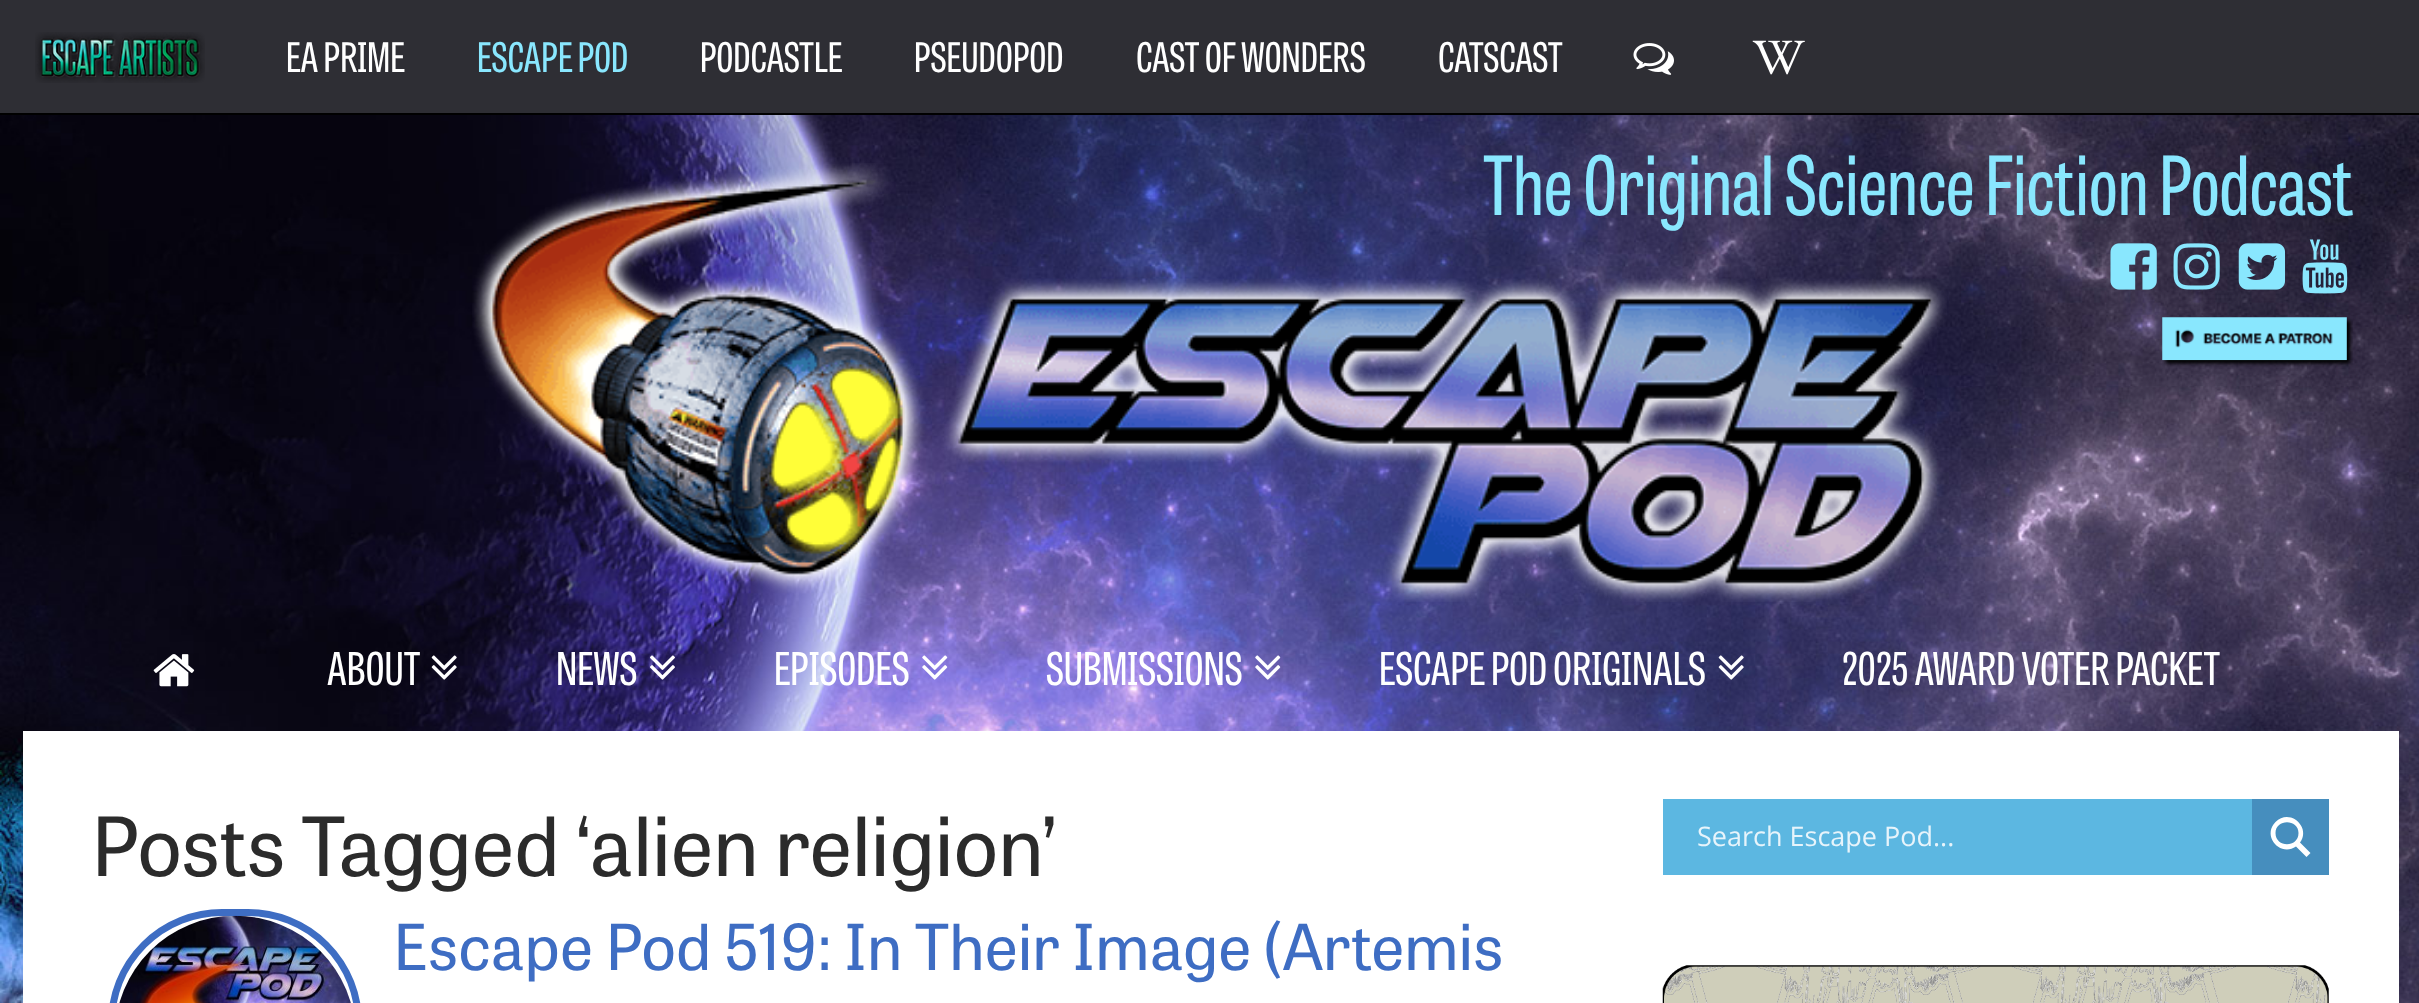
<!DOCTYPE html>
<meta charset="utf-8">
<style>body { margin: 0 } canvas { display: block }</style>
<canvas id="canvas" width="2419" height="1003"></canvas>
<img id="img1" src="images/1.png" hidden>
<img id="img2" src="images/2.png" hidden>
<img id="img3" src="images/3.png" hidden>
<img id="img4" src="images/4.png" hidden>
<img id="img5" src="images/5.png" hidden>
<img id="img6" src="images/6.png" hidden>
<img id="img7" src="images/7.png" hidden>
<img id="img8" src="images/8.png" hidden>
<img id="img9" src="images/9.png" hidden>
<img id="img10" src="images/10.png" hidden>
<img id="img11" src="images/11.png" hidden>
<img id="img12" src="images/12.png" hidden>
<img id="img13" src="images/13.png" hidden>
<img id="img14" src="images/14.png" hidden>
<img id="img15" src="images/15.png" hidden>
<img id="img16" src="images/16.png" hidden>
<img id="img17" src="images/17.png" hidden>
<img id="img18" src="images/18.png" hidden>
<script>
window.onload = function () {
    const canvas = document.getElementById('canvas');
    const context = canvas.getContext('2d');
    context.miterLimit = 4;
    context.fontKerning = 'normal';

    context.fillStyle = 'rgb(255, 255, 255)';
    context.fillRect(0, 0, 2419, 1003);
    context.drawImage(document.getElementById('img1'), 0, 115, 2419, 888);
    context.fillStyle = 'rgb(46, 46, 52)';
    context.fillRect(0, 0, 2419, 113);
    context.fillStyle = 'rgb(0, 0, 0)';
    context.fillRect(0, 113, 2419, 2);
    context.drawImage(document.getElementById('img2'), 35, 32, 170, 51);
    context.drawImage(document.getElementById('img3'), 1633, 43, 41, 32);
    context.drawImage(document.getElementById('img4'), 1752, 40, 53, 35);
    context.drawImage(document.getElementById('img5'), 2110, 243, 47, 47);
    context.drawImage(document.getElementById('img6'), 2173, 243, 47, 47);
    context.drawImage(document.getElementById('img7'), 2238, 243, 48, 47);
    context.drawImage(document.getElementById('img8'), 2302, 239, 46, 55);
    context.drawImage(document.getElementById('img9'), 2162, 317, 191, 50);
    context.drawImage(document.getElementById('img10'), 472, 163, 1475, 439);
    context.drawImage(document.getElementById('img11'), 153, 654, 42, 33);
    context.drawImage(document.getElementById('img12'), 431, 655, 26, 25);
    context.drawImage(document.getElementById('img13'), 650, 655, 25, 25);
    context.drawImage(document.getElementById('img14'), 922, 655, 26, 25);
    context.drawImage(document.getElementById('img15'), 1255, 655, 26, 25);
    context.drawImage(document.getElementById('img16'), 1718, 655, 26, 25);
    context.fillStyle = 'rgb(255, 255, 255)';
    context.fillRect(23, 731, 2376, 272);
    context.beginPath();
    context.roundRect(111.5, 912.5, 247, 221, 123.5);
    context.strokeStyle = 'rgb(62, 109, 195)';
    context.lineWidth = 7;
    context.stroke();
    context.drawImage(document.getElementById('img17'), 119, 915, 232, 88);
    context.fillStyle = 'rgb(92, 183, 225)';
    context.fillRect(1663, 799, 589, 76);
    context.fillStyle = 'rgb(70, 142, 190)';
    context.fillRect(2252, 799, 77, 76);
    context.fillStyle = 'rgb(255, 255, 255)';
    context.beginPath();
    context.moveTo(2310.5, 853);
    context.lineTo(2300, 842.5);
    context.bezierCurveTo(2311.5, 827, 2289.5, 807.5, 2275.5, 822);
    context.bezierCurveTo(2261.5, 836, 2280.5, 857.5, 2296, 846.5);
    context.lineTo(2306.5, 857);
    context.closePath();
    context.moveTo(2275.5, 833);
    context.bezierCurveTo(2275.5, 818.5, 2298.5, 818.5, 2298.5, 833);
    context.bezierCurveTo(2298.5, 848, 2275.5, 848, 2275.5, 833);
    context.closePath();
    context.fill();
    context.drawImage(document.getElementById('img18'), 1662, 965, 667, 38);
    context.font = '40.5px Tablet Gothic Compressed';
    context.fillText('EA PRIME', 286, 72);
    context.fillStyle = 'rgb(137, 231, 254)';
    context.fillText('ESCAPE POD', 477, 72);
    context.fillStyle = 'rgb(255, 255, 255)';
    context.fillText('PODCASTLE', 700, 72);
    context.fillText('PSEUDOPOD', 914, 72);
    context.fillText('CAST OF WONDERS', 1136, 72);
    context.fillText('CATSCAST', 1438, 72);
    context.font = '81px Tablet Gothic Compressed';
    context.fillStyle = 'rgb(137, 231, 254)';
    context.fillText('The Original Science Fiction Podcast', 1483, 215);
    context.font = '45px Tablet Gothic Compressed';
    context.fillStyle = 'rgb(255, 255, 255)';
    context.fillText('ABOUT', 327, 685);
    context.fillText('NEWS', 556, 685);
    context.fillText('EPISODES', 774, 685);
    context.fillText('SUBMISSIONS', 1046, 685);
    context.fillText('ESCAPE POD ORIGINALS', 1379, 685);
    context.fillText('2025 AWARD VOTER PACKET', 1842, 685);
    context.font = '81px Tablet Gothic';
    context.fillStyle = 'rgb(43, 43, 43)';
    context.fillText('Posts Tagged ‘alien religion’', 91, 876);
    context.font = '63px Tablet Gothic';
    context.fillStyle = 'rgb(62, 109, 195)';
    context.fillText('Escape Pod 519: In Their Image (Artemis', 393, 970);
    context.font = '27px Open Sans';
    context.fillStyle = 'rgb(231, 244, 251)';
    context.fillText('Search Escape Pod...', 1697, 846);
};
</script>
